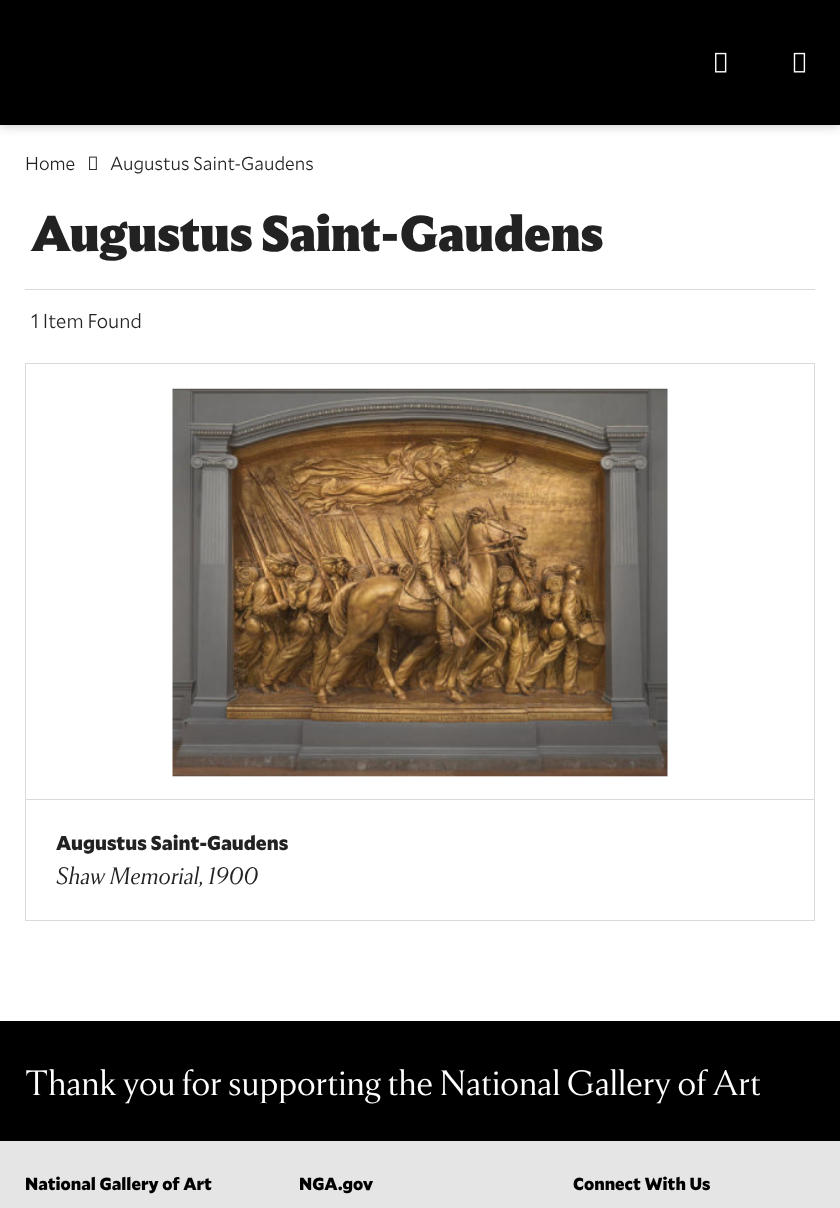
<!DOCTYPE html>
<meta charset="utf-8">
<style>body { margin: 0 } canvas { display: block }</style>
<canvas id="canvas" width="840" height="1208"></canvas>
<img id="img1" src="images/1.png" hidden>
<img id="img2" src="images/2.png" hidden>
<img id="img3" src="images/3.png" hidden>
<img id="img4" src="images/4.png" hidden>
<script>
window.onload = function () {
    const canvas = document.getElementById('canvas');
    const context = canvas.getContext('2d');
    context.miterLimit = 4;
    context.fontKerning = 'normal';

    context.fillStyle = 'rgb(255, 255, 255)';
    context.fillRect(0, 0, 840, 1208);
    context.fillStyle = 'rgba(0, 0, 0, 0.25)';
    context.filter = 'blur(6px)';
    context.beginPath();
    context.rect(0, 0, 840, 125);
    context.fill();
    context.filter = 'none';
    context.fillStyle = 'rgb(0, 0, 0)';
    context.fillRect(0, 0, 840, 125);
    context.drawImage(document.getElementById('img1'), 715, 52, 12, 21);
    context.drawImage(document.getElementById('img2'), 793, 52, 13, 21);
    context.drawImage(document.getElementById('img3'), 89, 156, 8, 14);
    context.fillStyle = 'rgb(218, 218, 218)';
    context.fillRect(25, 289, 790, 1);
    context.strokeStyle = 'rgb(218, 218, 218)';
    context.strokeRect(25.5, 363.5, 789, 436);
    context.drawImage(document.getElementById('img4'), 172, 388, 496, 389);
    context.fillRect(814, 800, 1, 121);
    context.fillRect(25, 920, 790, 1);
    context.fillRect(25, 800, 1, 121);
    context.fillStyle = 'rgb(0, 0, 0)';
    context.fillRect(0, 1021, 840, 120);
    context.fillStyle = 'rgb(230, 229, 230)';
    context.fillRect(0, 1141, 840, 67);
    context.font = '300 18.75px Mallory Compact';
    context.fillStyle = 'rgb(34, 34, 34)';
    context.fillText('Home', 25, 170);
    context.fillText('Augustus Saint-Gaudens', 110, 170);
    context.font = '900 50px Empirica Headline';
    context.fillText('Augustus Saint-Gaudens', 31, 251);
    context.font = '300 20px Mallory Compact';
    context.fillText('1 Item Found', 31, 328);
    context.font = '900 20px Mallory Compact';
    context.fillText('Augustus Saint-Gaudens', 56, 850);
    context.font = 'italic 300 23.75px Empirica Headline';
    context.fillText('Shaw Memorial, 1900', 56, 884);
    context.font = '300 35px Empirica Headline';
    context.fillStyle = 'rgb(255, 255, 255)';
    context.fillText('Thank you for supporting the National Gallery of Art', 25, 1095);
    context.font = '900 17.5px Mallory Compact';
    context.fillStyle = 'rgb(0, 0, 0)';
    context.fillText('National Gallery of Art', 25, 1190);
    context.fillText('NGA.gov', 299, 1190);
    context.fillText('Connect With Us', 573, 1190);
};
</script>
